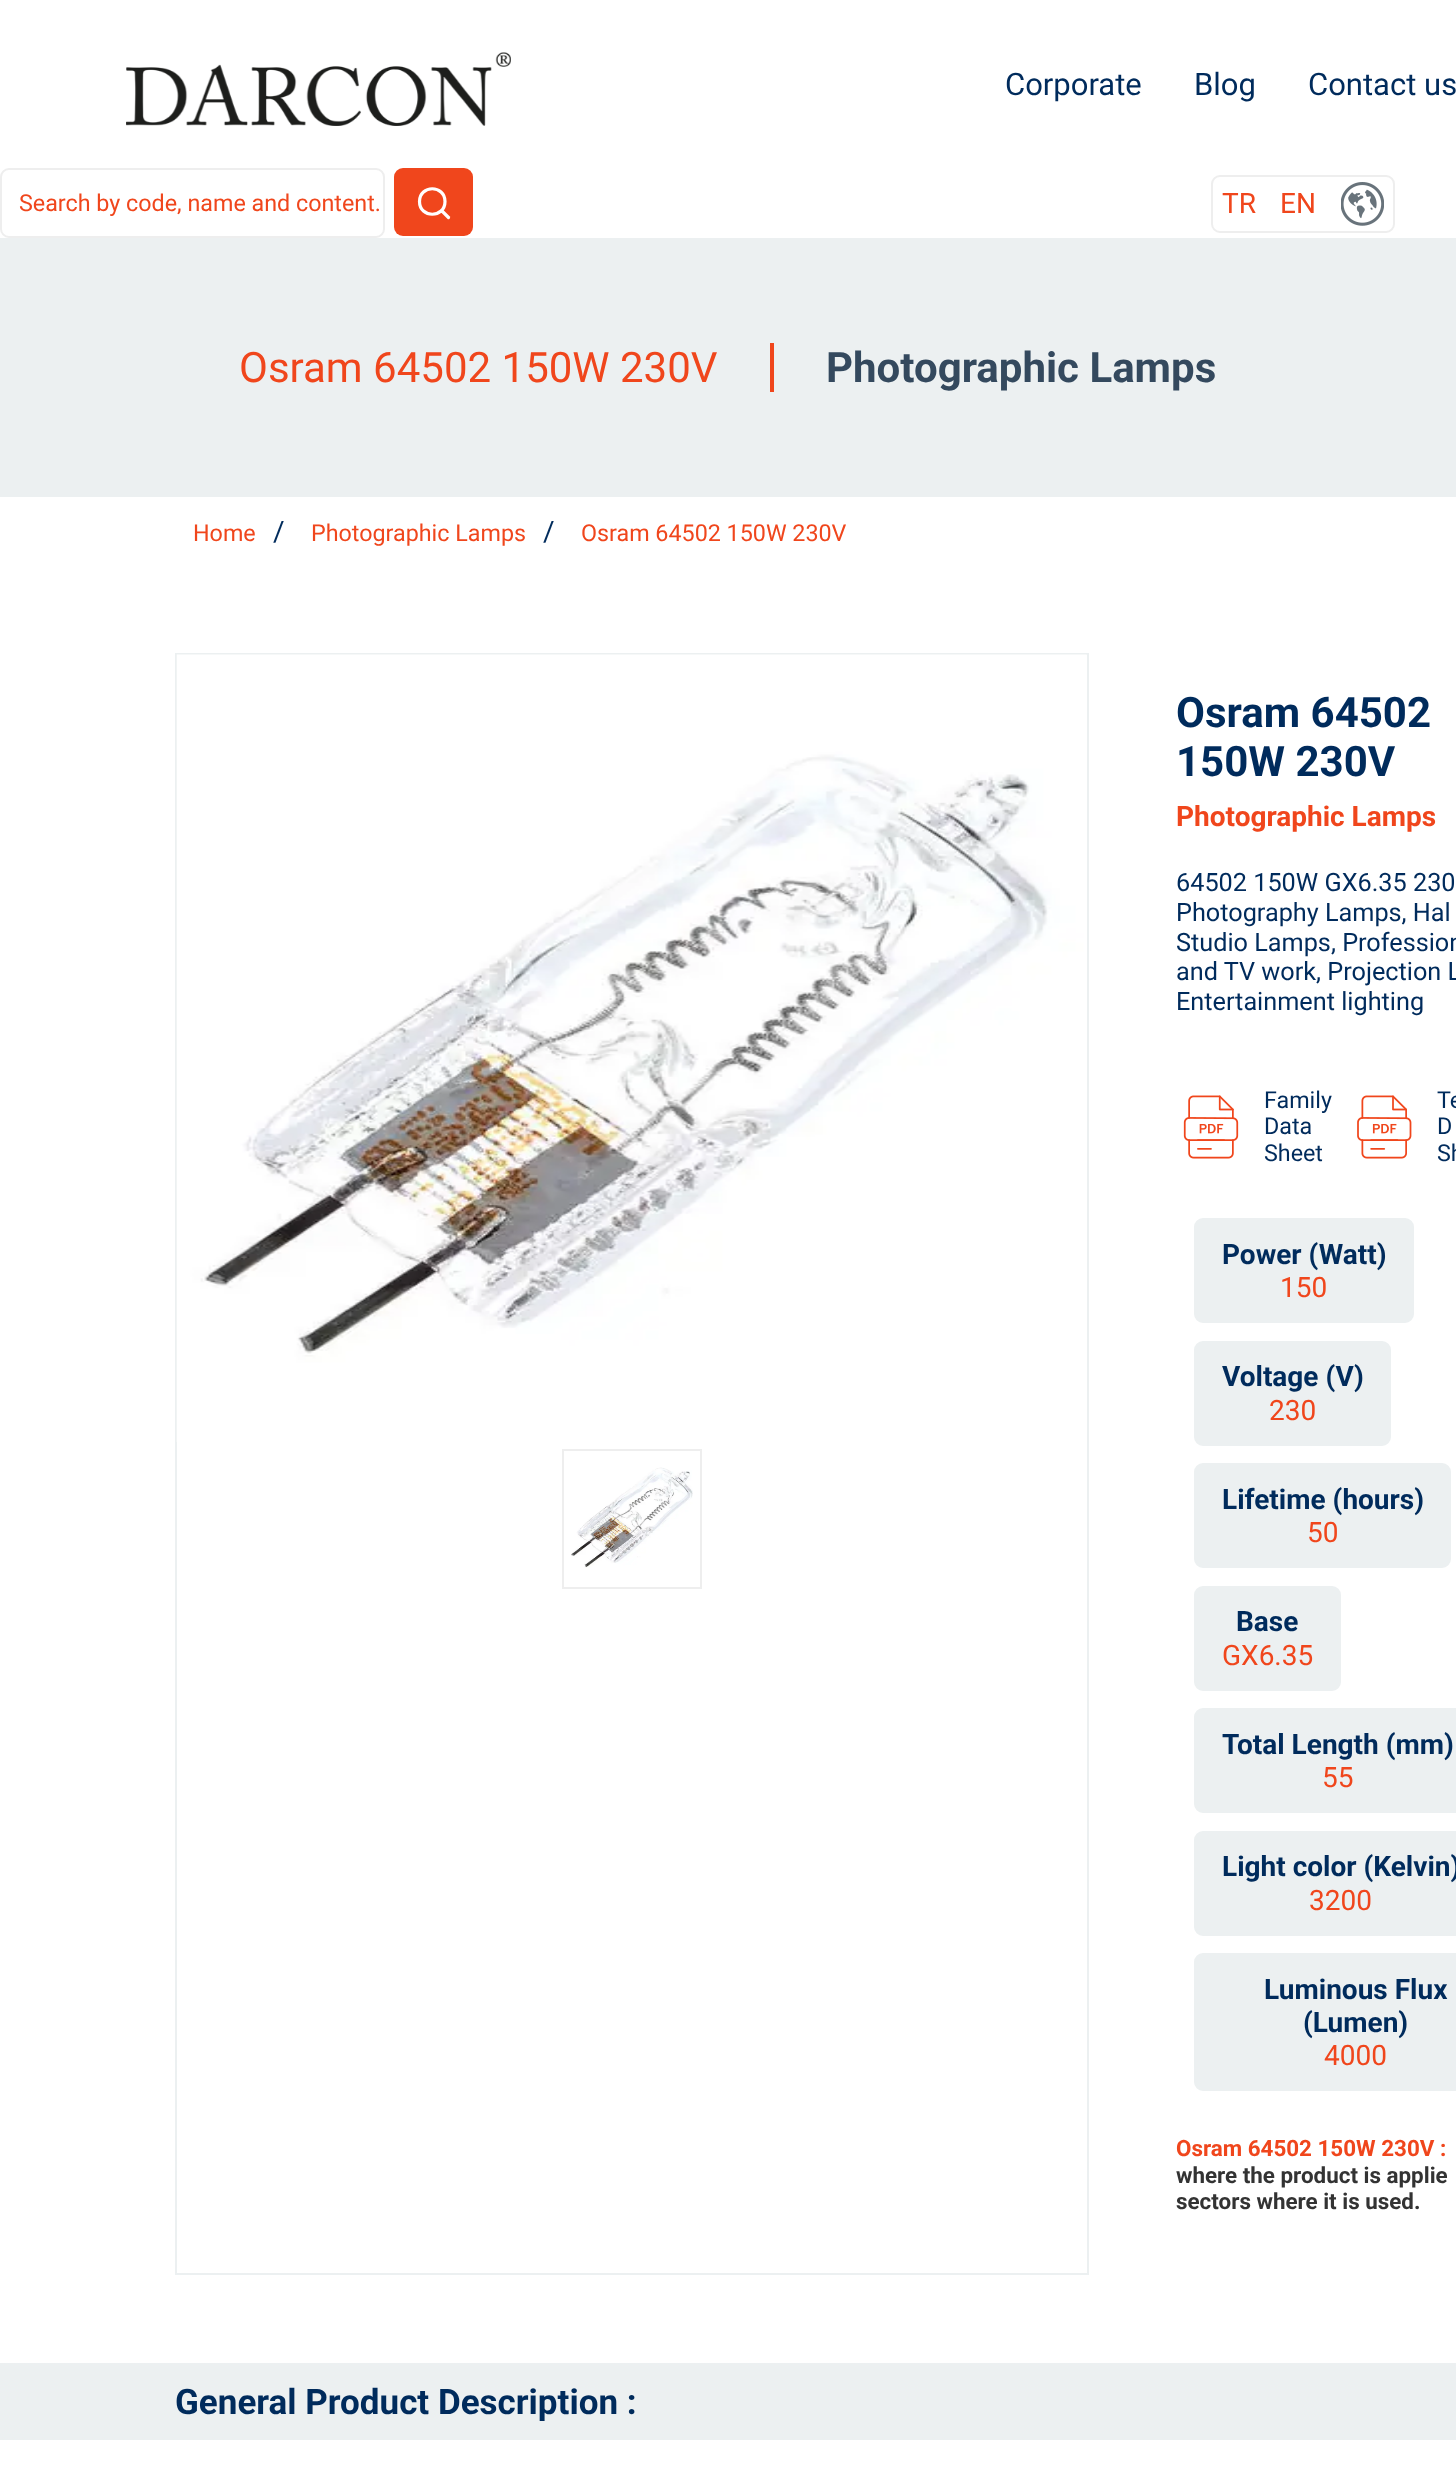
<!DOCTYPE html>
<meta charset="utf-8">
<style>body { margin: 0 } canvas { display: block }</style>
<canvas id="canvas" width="1456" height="2481"></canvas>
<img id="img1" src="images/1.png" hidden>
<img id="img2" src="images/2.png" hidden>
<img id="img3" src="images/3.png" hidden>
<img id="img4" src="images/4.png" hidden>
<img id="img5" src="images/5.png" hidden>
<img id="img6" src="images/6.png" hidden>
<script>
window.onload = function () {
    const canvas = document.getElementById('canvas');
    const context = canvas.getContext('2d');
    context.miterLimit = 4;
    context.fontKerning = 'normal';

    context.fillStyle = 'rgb(255, 255, 255)';
    context.fillRect(0, 0, 1456, 2481);
    context.drawImage(document.getElementById('img1'), 126, 52, 385, 74);
    context.beginPath();
    context.roundRect(1, 169, 383, 68, 8);
    context.strokeStyle = 'rgb(238, 238, 238)';
    context.lineWidth = 2;
    context.stroke();
    context.fillStyle = 'rgb(240, 70, 28)';
    context.beginPath();
    context.roundRect(394, 168, 79, 68, 9);
    context.fill();
    context.beginPath();
    context.moveTo(442, 211);
    context.lineTo(448.5, 217.5);
    context.strokeStyle = 'rgb(255, 255, 255)';
    context.lineWidth = 3.2;
    context.lineCap = 'round';
    context.lineJoin = 'round';
    context.stroke();
    context.beginPath();
    context.moveTo(445, 201.5);
    context.bezierCurveTo(445, 218.5, 419.5, 218.5, 419.5, 201.5);
    context.bezierCurveTo(419.5, 184.5, 445, 184.5, 445, 201.5);
    context.closePath();
    context.lineCap = 'butt';
    context.lineJoin = 'miter';
    context.stroke();
    context.beginPath();
    context.roundRect(1212, 176, 182, 56, 8);
    context.strokeStyle = 'rgb(238, 238, 238)';
    context.lineWidth = 2;
    context.stroke();
    context.drawImage(document.getElementById('img2'), 1341, 182, 43, 44);
    context.fillStyle = 'rgb(236, 240, 241)';
    context.fillRect(0, 238, 1456, 259);
    context.fillStyle = 'rgb(240, 70, 28)';
    context.fillRect(770, 343, 4, 49);
    context.strokeStyle = 'rgb(236, 240, 241)';
    context.strokeRect(176, 654, 912, 1620);
    context.drawImage(document.getElementById('img3'), 176, 654, 911, 788);
    context.strokeStyle = 'rgb(238, 238, 238)';
    context.strokeRect(563, 1450, 138, 138);
    context.drawImage(document.getElementById('img4'), 571, 1467, 122, 101);
    context.drawImage(document.getElementById('img5'), 1183, 1095, 56, 64);
    context.drawImage(document.getElementById('img6'), 1357, 1095, 55, 64);
    context.fillStyle = 'rgb(236, 240, 241)';
    context.beginPath();
    context.roundRect(1195, 1219, 218, 103, 8);
    context.fill();
    context.strokeStyle = 'rgb(236, 240, 241)';
    context.stroke();
    context.beginPath();
    context.roundRect(1195, 1342, 195, 103, 8);
    context.fill();
    context.stroke();
    context.beginPath();
    context.roundRect(1195, 1464, 255, 103, 8);
    context.fill();
    context.stroke();
    context.beginPath();
    context.roundRect(1195, 1587, 145, 103, 8);
    context.fill();
    context.stroke();
    context.beginPath();
    context.roundRect(1195, 1709, 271, 103, 8);
    context.fill();
    context.stroke();
    context.beginPath();
    context.roundRect(1195, 1832, 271, 103, 8);
    context.fill();
    context.stroke();
    context.beginPath();
    context.roundRect(1195, 1954, 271, 136, 8);
    context.fill();
    context.stroke();
    context.fillRect(0, 2363, 1456, 77);
    context.font = '31px Roboto';
    context.fillStyle = 'rgb(0, 43, 92)';
    context.fillText('Corporate', 1005, 95);
    context.fillText('Blog', 1194, 95);
    context.fillText('Contact us', 1308, 95);
    context.font = '23.3px Roboto';
    context.fillStyle = 'rgb(240, 70, 28)';
    context.fillText('Search by code, name and content.', 19, 211);
    context.font = '28px Roboto';
    context.fillText('TR', 1222, 213);
    context.fillText('EN', 1280, 213);
    context.font = '42px Roboto';
    context.fillText('Osram 64502 150W 230V', 239, 382);
    context.font = 'bold 42px Roboto';
    context.fillStyle = 'rgb(52, 73, 94)';
    context.fillText('Photographic Lamps', 826, 382);
    context.font = '23.3px Roboto';
    context.fillStyle = 'rgb(240, 70, 28)';
    context.fillText('Home', 193, 541);
    context.font = '28px Roboto';
    context.fillStyle = 'rgb(0, 43, 92)';
    context.fillText('/', 273, 541);
    context.font = '23.3px Roboto';
    context.fillStyle = 'rgb(240, 70, 28)';
    context.fillText('Photographic Lamps', 311, 541);
    context.font = '28px Roboto';
    context.fillStyle = 'rgb(0, 43, 92)';
    context.fillText('/', 543, 541);
    context.font = '23.3px Roboto';
    context.fillStyle = 'rgb(240, 70, 28)';
    context.fillText('Osram 64502 150W 230V', 581, 541);
    context.font = 'bold 42px Roboto';
    context.fillStyle = 'rgb(0, 43, 92)';
    context.fillText('Osram 64502', 1176, 727);
    context.fillText('150W 230V', 1176, 776);
    context.font = 'bold 28px Roboto';
    context.fillStyle = 'rgb(240, 70, 28)';
    context.fillText('Photographic Lamps', 1176, 826);
    context.font = '25.25px Roboto';
    context.fillStyle = 'rgb(0, 43, 92)';
    context.fillText('64502 150W GX6.35 230', 1176, 891);
    context.fillText('Photography Lamps, Hal', 1176, 921);
    context.fillText('Studio Lamps, Profession', 1176, 951);
    context.fillText('and TV work, Projection L', 1176, 980);
    context.fillText('Entertainment lighting', 1176, 1010);
    context.font = '23.3px Roboto';
    context.fillText('Family', 1264, 1108);
    context.fillText('Data', 1264, 1134);
    context.fillText('Sheet', 1264, 1161);
    context.fillText('Te', 1437, 1108);
    context.fillText('D', 1437, 1134);
    context.fillText('Sh', 1437, 1161);
    context.font = 'bold 28px Roboto';
    context.fillText('Power (Watt)', 1222, 1264);
    context.font = '28px Roboto';
    context.fillStyle = 'rgb(240, 70, 28)';
    context.fillText('150', 1280, 1297);
    context.font = 'bold 28px Roboto';
    context.fillStyle = 'rgb(0, 43, 92)';
    context.fillText('Voltage (V)', 1222, 1386);
    context.font = '28px Roboto';
    context.fillStyle = 'rgb(240, 70, 28)';
    context.fillText('230', 1269, 1420);
    context.font = 'bold 28px Roboto';
    context.fillStyle = 'rgb(0, 43, 92)';
    context.fillText('Lifetime (hours)', 1222, 1509);
    context.font = '28px Roboto';
    context.fillStyle = 'rgb(240, 70, 28)';
    context.fillText('50', 1307, 1542);
    context.font = 'bold 28px Roboto';
    context.fillStyle = 'rgb(0, 43, 92)';
    context.fillText('Base', 1236, 1631);
    context.font = '28px Roboto';
    context.fillStyle = 'rgb(240, 70, 28)';
    context.fillText('GX6.35', 1222, 1665);
    context.font = 'bold 28px Roboto';
    context.fillStyle = 'rgb(0, 43, 92)';
    context.fillText('Total Length (mm)', 1222, 1754);
    context.font = '28px Roboto';
    context.fillStyle = 'rgb(240, 70, 28)';
    context.fillText('55', 1322, 1787);
    context.font = 'bold 28px Roboto';
    context.fillStyle = 'rgb(0, 43, 92)';
    context.fillText('Light color (Kelvin)', 1222, 1876);
    context.font = '28px Roboto';
    context.fillStyle = 'rgb(240, 70, 28)';
    context.fillText('3200', 1309, 1910);
    context.font = 'bold 28px Roboto';
    context.fillStyle = 'rgb(0, 43, 92)';
    context.fillText('Luminous Flux', 1264, 1999);
    context.fillText('(Lumen)', 1303, 2032);
    context.font = '28px Roboto';
    context.fillStyle = 'rgb(240, 70, 28)';
    context.fillText('4000', 1324, 2065);
    context.font = 'bold 22.4px Roboto';
    context.fillText('Osram 64502 150W 230V :', 1176, 2156);
    context.fillStyle = 'rgb(51, 51, 51)';
    context.fillText('where the product is applie', 1176, 2183);
    context.fillText('sectors where it is used.', 1176, 2209);
    context.font = 'bold 35px Roboto';
    context.fillStyle = 'rgb(0, 43, 92)';
    context.fillText('General Product Description :', 175, 2414);
};
</script>
